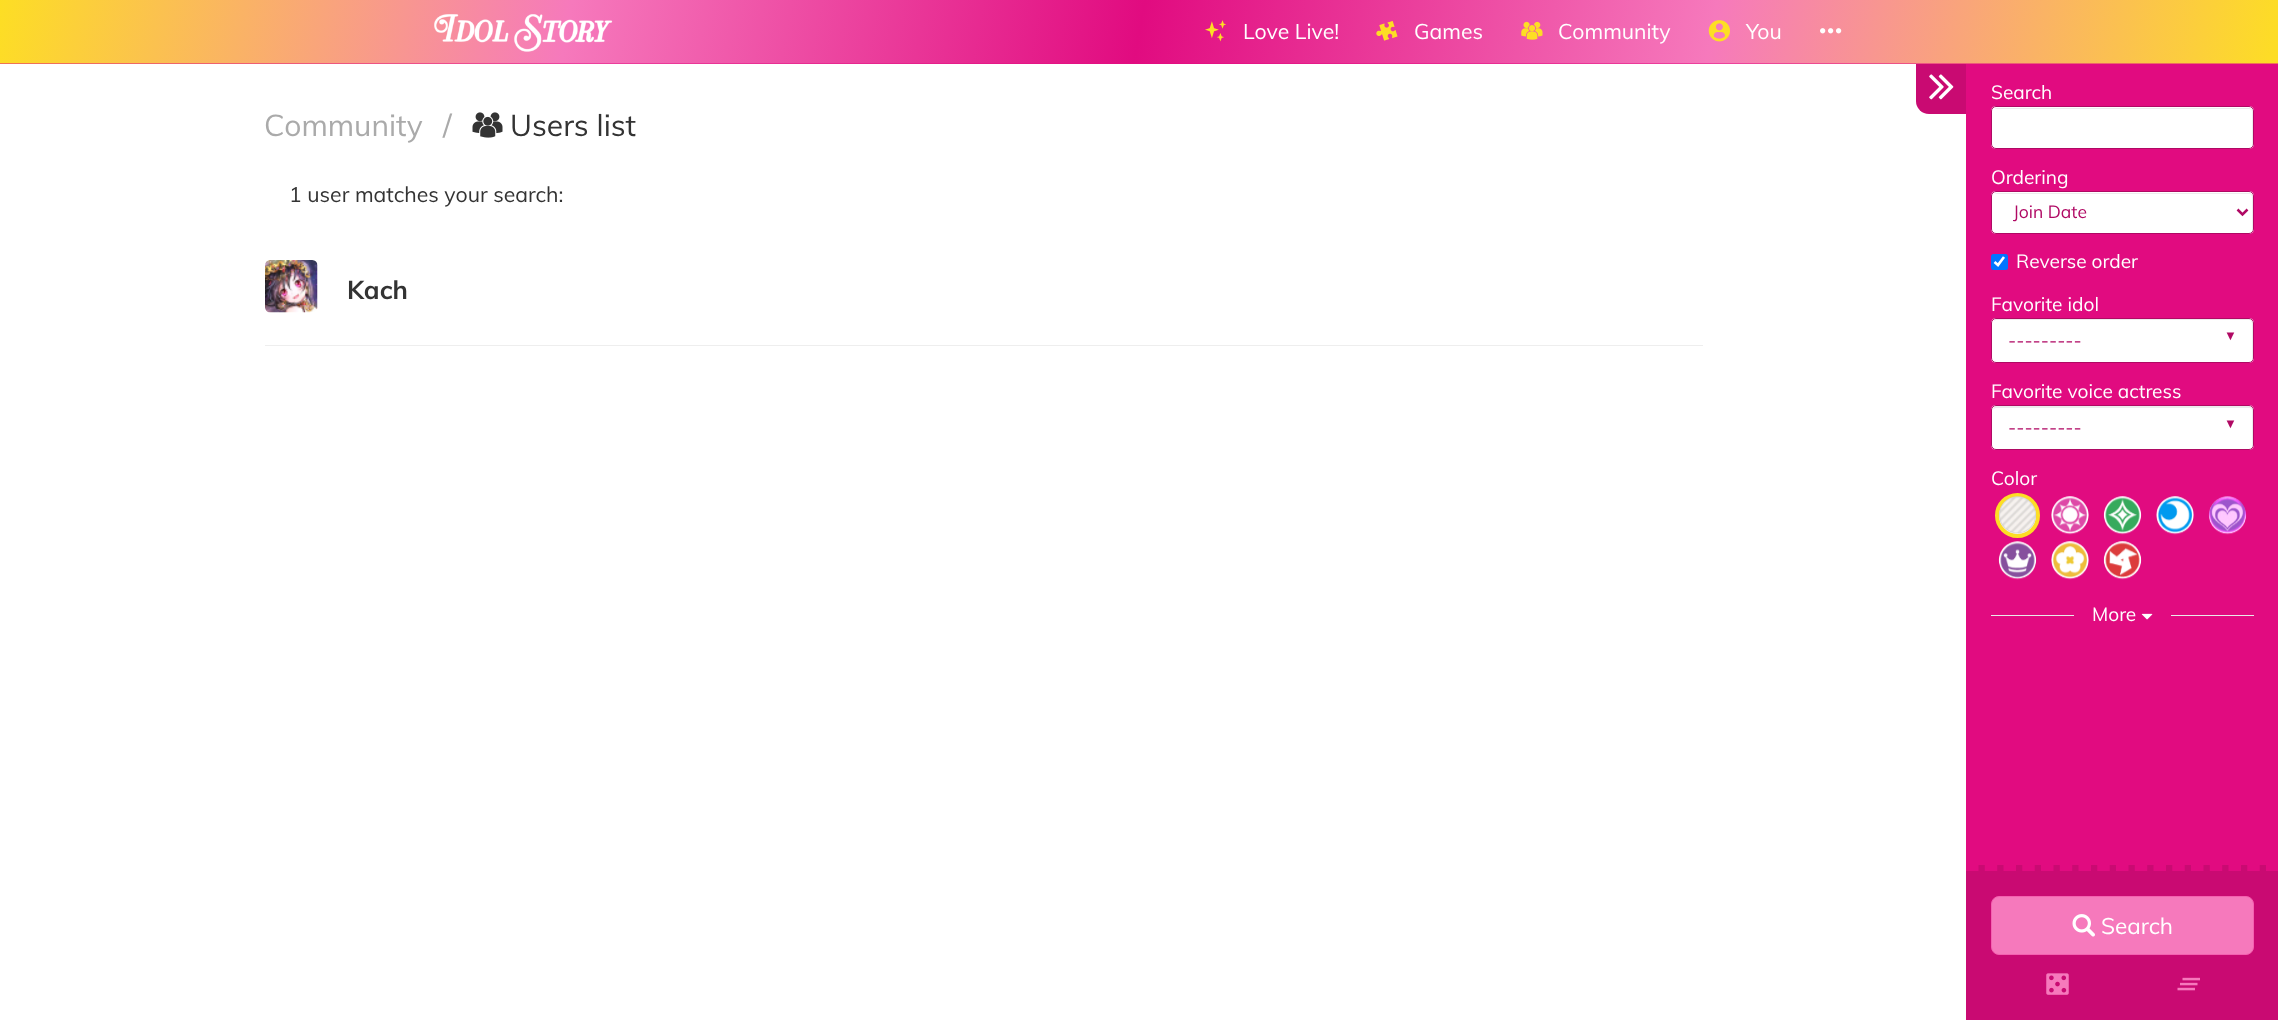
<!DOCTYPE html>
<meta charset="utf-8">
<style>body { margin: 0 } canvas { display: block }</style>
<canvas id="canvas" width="2278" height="1020"></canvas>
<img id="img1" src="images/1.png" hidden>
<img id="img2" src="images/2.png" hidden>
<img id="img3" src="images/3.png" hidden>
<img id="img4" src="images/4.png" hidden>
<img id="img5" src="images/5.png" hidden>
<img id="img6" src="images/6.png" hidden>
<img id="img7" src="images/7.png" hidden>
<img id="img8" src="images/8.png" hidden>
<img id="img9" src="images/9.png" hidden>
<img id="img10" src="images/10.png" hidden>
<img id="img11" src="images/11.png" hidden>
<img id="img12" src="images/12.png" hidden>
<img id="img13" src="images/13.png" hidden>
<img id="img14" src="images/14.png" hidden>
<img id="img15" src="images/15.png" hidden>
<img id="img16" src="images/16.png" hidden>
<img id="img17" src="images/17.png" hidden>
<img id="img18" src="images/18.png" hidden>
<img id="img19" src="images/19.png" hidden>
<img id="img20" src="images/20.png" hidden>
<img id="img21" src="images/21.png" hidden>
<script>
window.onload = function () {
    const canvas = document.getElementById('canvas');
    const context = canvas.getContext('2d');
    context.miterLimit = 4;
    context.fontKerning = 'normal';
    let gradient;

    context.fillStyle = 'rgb(255, 255, 255)';
    context.fillRect(0, 0, 2278, 1020);
    gradient = context.createLinearGradient(2250, 227, 29, -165);
    gradient.addColorStop(0, 'rgb(253, 222, 36)');
    gradient.addColorStop(0.25, 'rgb(246, 121, 188)');
    gradient.addColorStop(0.5, 'rgb(225, 11, 128)');
    gradient.addColorStop(0.75, 'rgb(246, 121, 188)');
    gradient.addColorStop(1, 'rgb(253, 222, 36)');
    context.fillStyle = gradient;
    context.fillRect(0, 0, 2278, 63);
    gradient = context.createLinearGradient(2250, 290, 29, -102);
    gradient.addColorStop(0, 'rgb(239, 117, 82)');
    gradient.addColorStop(0.25, 'rgb(236, 66, 158)');
    gradient.addColorStop(0.5, 'rgb(225, 11, 128)');
    gradient.addColorStop(0.75, 'rgb(236, 66, 158)');
    gradient.addColorStop(1, 'rgb(239, 117, 82)');
    context.fillStyle = gradient;
    context.fillRect(0, 63, 2278, 1);
    context.drawImage(document.getElementById('img1'), 434, 14, 179, 38);
    context.drawImage(document.getElementById('img2'), 1205, 20, 21, 22);
    context.drawImage(document.getElementById('img3'), 1376, 21, 22, 20);
    context.drawImage(document.getElementById('img4'), 1521, 21, 22, 19);
    context.drawImage(document.getElementById('img5'), 1708, 20, 22, 22);
    context.drawImage(document.getElementById('img6'), 1820, 28, 22, 6);
    context.fillStyle = 'rgb(201, 10, 114)';
    context.beginPath();
    context.roundRect(1916, 64, 50, 50, [0, 0, 0, 13]);
    context.fill();
    context.drawImage(document.getElementById('img7'), 1929, 74, 25, 26);
    context.drawImage(document.getElementById('img8'), 472, 112, 31, 26);
    context.fillStyle = 'rgb(238, 238, 238)';
    context.fillRect(265, 345, 1438, 1);
    context.drawImage(document.getElementById('img9'), 265, 260, 53, 53);
    context.fillStyle = 'rgb(225, 11, 128)';
    context.fillRect(1966, 64, 312, 801);
    context.fillStyle = 'rgb(255, 255, 255)';
    context.beginPath();
    context.roundRect(1991, 106, 263, 43, 5);
    context.fill();
    context.fillStyle = 'rgb(236, 236, 236)';
    context.beginPath();
    context.moveTo(1996, 109);
    context.lineTo(2249, 109);
    context.bezierCurveTo(2251, 109, 2252, 110, 2252, 112);
    context.lineTo(2252, 147);
    context.bezierCurveTo(2252, 146, 2253, 145, 2253, 144);
    context.lineTo(2253, 112);
    context.bezierCurveTo(2253, 110, 2251, 108, 2249, 108);
    context.lineTo(1997, 108);
    context.bezierCurveTo(1996, 108, 1995, 109, 1994, 109);
    context.closePath();
    context.fill();
    context.beginPath();
    context.roundRect(1991.5, 106.5, 262, 42, 4.5);
    context.strokeStyle = 'rgb(176, 9, 100)';
    context.stroke();
    context.fillStyle = 'rgb(255, 255, 255)';
    context.beginPath();
    context.roundRect(1991, 191, 263, 43, 5);
    context.fill();
    context.fillStyle = 'rgb(236, 236, 236)';
    context.beginPath();
    context.moveTo(1996, 194);
    context.lineTo(2249, 194);
    context.bezierCurveTo(2251, 194, 2252, 195, 2252, 198);
    context.lineTo(2252, 232);
    context.bezierCurveTo(2252, 231, 2253, 230, 2253, 229);
    context.lineTo(2253, 197);
    context.bezierCurveTo(2253, 195, 2251, 193, 2249, 193);
    context.lineTo(1997, 193);
    context.bezierCurveTo(1996, 193, 1995, 194, 1994, 194);
    context.closePath();
    context.fill();
    context.beginPath();
    context.roundRect(1991.5, 191.5, 262, 42, 4.5);
    context.stroke();
    context.beginPath();
    context.moveTo(2237.5, 209.5);
    context.lineTo(2242.5, 214.5);
    context.lineTo(2247.5, 209.5);
    context.lineWidth = 2.5;
    context.stroke();
    context.fillStyle = 'rgb(0, 117, 255)';
    context.beginPath();
    context.roundRect(1991, 254, 17, 16, 2.5);
    context.fill();
    context.beginPath();
    context.moveTo(1994.5, 262);
    context.lineTo(1998, 265);
    context.lineTo(2004, 257);
    context.strokeStyle = 'rgb(255, 255, 255)';
    context.lineWidth = 2.6;
    context.stroke();
    context.fillStyle = 'rgb(255, 255, 255)';
    context.beginPath();
    context.roundRect(1991, 318, 263, 45, 5);
    context.fill();
    context.fillStyle = 'rgb(236, 236, 236)';
    context.beginPath();
    context.moveTo(1996, 320);
    context.lineTo(2249, 320);
    context.bezierCurveTo(2251, 320, 2252, 322, 2252, 324);
    context.lineTo(2252, 360);
    context.bezierCurveTo(2253, 359, 2253, 358, 2253, 357);
    context.lineTo(2253, 323);
    context.bezierCurveTo(2253, 321, 2251, 319, 2249, 319);
    context.lineTo(1997, 319);
    context.bezierCurveTo(1996, 319, 1994, 320, 1994, 321);
    context.closePath();
    context.fill();
    context.beginPath();
    context.roundRect(1991.5, 318.5, 262, 44, 4.5);
    context.strokeStyle = 'rgb(176, 9, 100)';
    context.lineWidth = 1;
    context.stroke();
    context.fillStyle = 'rgb(255, 255, 255)';
    context.beginPath();
    context.roundRect(1991, 405, 263, 45, 5);
    context.fill();
    context.fillStyle = 'rgb(236, 236, 236)';
    context.beginPath();
    context.moveTo(1996, 408);
    context.lineTo(2249, 408);
    context.bezierCurveTo(2251, 408, 2252, 409, 2252, 411);
    context.lineTo(2252, 448);
    context.bezierCurveTo(2252, 447, 2253, 446, 2253, 445);
    context.lineTo(2253, 410);
    context.bezierCurveTo(2253, 408, 2251, 406, 2249, 406);
    context.lineTo(1997, 406);
    context.bezierCurveTo(1995, 406, 1994, 407, 1993, 409);
    context.closePath();
    context.fill();
    context.beginPath();
    context.roundRect(1991.5, 405.5, 262, 44, 4.5);
    context.stroke();
    context.fillStyle = 'rgb(255, 255, 255)';
    context.beginPath();
    context.arc(2017.5, 515.5, 20.5, 0, 2 * Math.PI);
    context.fill();
    context.strokeStyle = 'rgb(253, 222, 36)';
    context.lineWidth = 4;
    context.stroke();
    context.drawImage(document.getElementById('img10'), 1998, 496, 39, 39);
    context.drawImage(document.getElementById('img11'), 2051, 496, 38, 39);
    context.drawImage(document.getElementById('img12'), 2103, 496, 39, 39);
    context.drawImage(document.getElementById('img13'), 2156, 496, 38, 39);
    context.drawImage(document.getElementById('img14'), 2208, 496, 39, 39);
    context.drawImage(document.getElementById('img15'), 1998, 541, 39, 39);
    context.drawImage(document.getElementById('img16'), 2051, 541, 38, 39);
    context.drawImage(document.getElementById('img17'), 2103, 541, 39, 39);
    context.fillStyle = 'rgb(234, 234, 234)';
    context.fillRect(1991, 615, 83, 1);
    context.drawImage(document.getElementById('img18'), 2141, 613, 12, 7);
    context.fillRect(2171, 615, 83, 1);
    context.fillStyle = 'rgb(201, 10, 114)';
    context.fillRect(1966, 865, 312, 155);
    context.beginPath();
    context.moveTo(1966, 868);
    context.lineTo(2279, 868);
    context.strokeStyle = 'rgb(225, 11, 128)';
    context.lineWidth = 6.2;
    context.setLineDash([12.5, 6.25]);
    context.stroke();
    context.fillStyle = 'rgb(246, 121, 188)';
    context.beginPath();
    context.roundRect(1991.5, 896.5, 262, 58, 7.5);
    context.fill();
    context.strokeStyle = 'rgb(244, 97, 176)';
    context.lineWidth = 1;
    context.setLineDash([]);
    context.stroke();
    context.drawImage(document.getElementById('img19'), 2072, 914, 23, 23);
    context.drawImage(document.getElementById('img20'), 2046, 973, 23, 22);
    context.drawImage(document.getElementById('img21'), 2177, 977, 23, 14);
    context.font = '21.25px Muli';
    context.fillStyle = 'rgb(255, 255, 255)';
    context.fillText('Love Live!', 1243, 39);
    context.fillText('Games', 1414, 39);
    context.fillText('Community', 1558, 39);
    context.fillText('You', 1746, 39);
    context.font = '30px Muli';
    context.fillStyle = 'rgb(170, 170, 170)';
    context.fillText('Community', 264, 136);
    context.fillText('/', 443, 136);
    context.fillStyle = 'rgb(51, 51, 51)';
    context.fillText('Users list', 510, 136);
    context.font = '21.25px Muli';
    context.fillText('1 user matches your search:', 289, 202);
    context.font = 'bold 25.5px Muli';
    context.fillText('Kach', 347, 299);
    context.font = '19.1px Muli';
    context.fillStyle = 'rgb(255, 255, 255)';
    context.fillText('Search', 1991, 99);
    context.fillText('Ordering', 1991, 184);
    context.save();
    context.beginPath();
    context.rect(2013, 200, 205, 25);
    context.clip();
    context.font = '17.5px Muli';
    context.fillStyle = 'rgb(176, 9, 100)';
    context.fillText('Join Date', 2013, 218);
    context.restore();
    context.fillText('Reverse order', 2016, 268);
    context.fillText('Favorite idol', 1991, 311);
    context.font = '13px Liberation Sans';
    context.fillStyle = 'rgb(176, 9, 100)';
    context.fillText('▼', 2224, 340);
    context.font = '19.1px Muli';
    context.fillText('---------', 2008, 347);
    context.fillStyle = 'rgb(255, 255, 255)';
    context.fillText('Favorite voice actress', 1991, 398);
    context.fillStyle = 'rgb(176, 9, 100)';
    context.fillText('---------', 2008, 434);
    context.font = '13px Liberation Sans';
    context.fillText('▼', 2224, 428);
    context.font = '19.1px Muli';
    context.fillStyle = 'rgb(255, 255, 255)';
    context.fillText('Color', 1991, 485);
    context.fillText('More', 2092, 621);
    context.font = '22.5px Muli';
    context.fillText('Search', 2101, 934);
};
</script>
